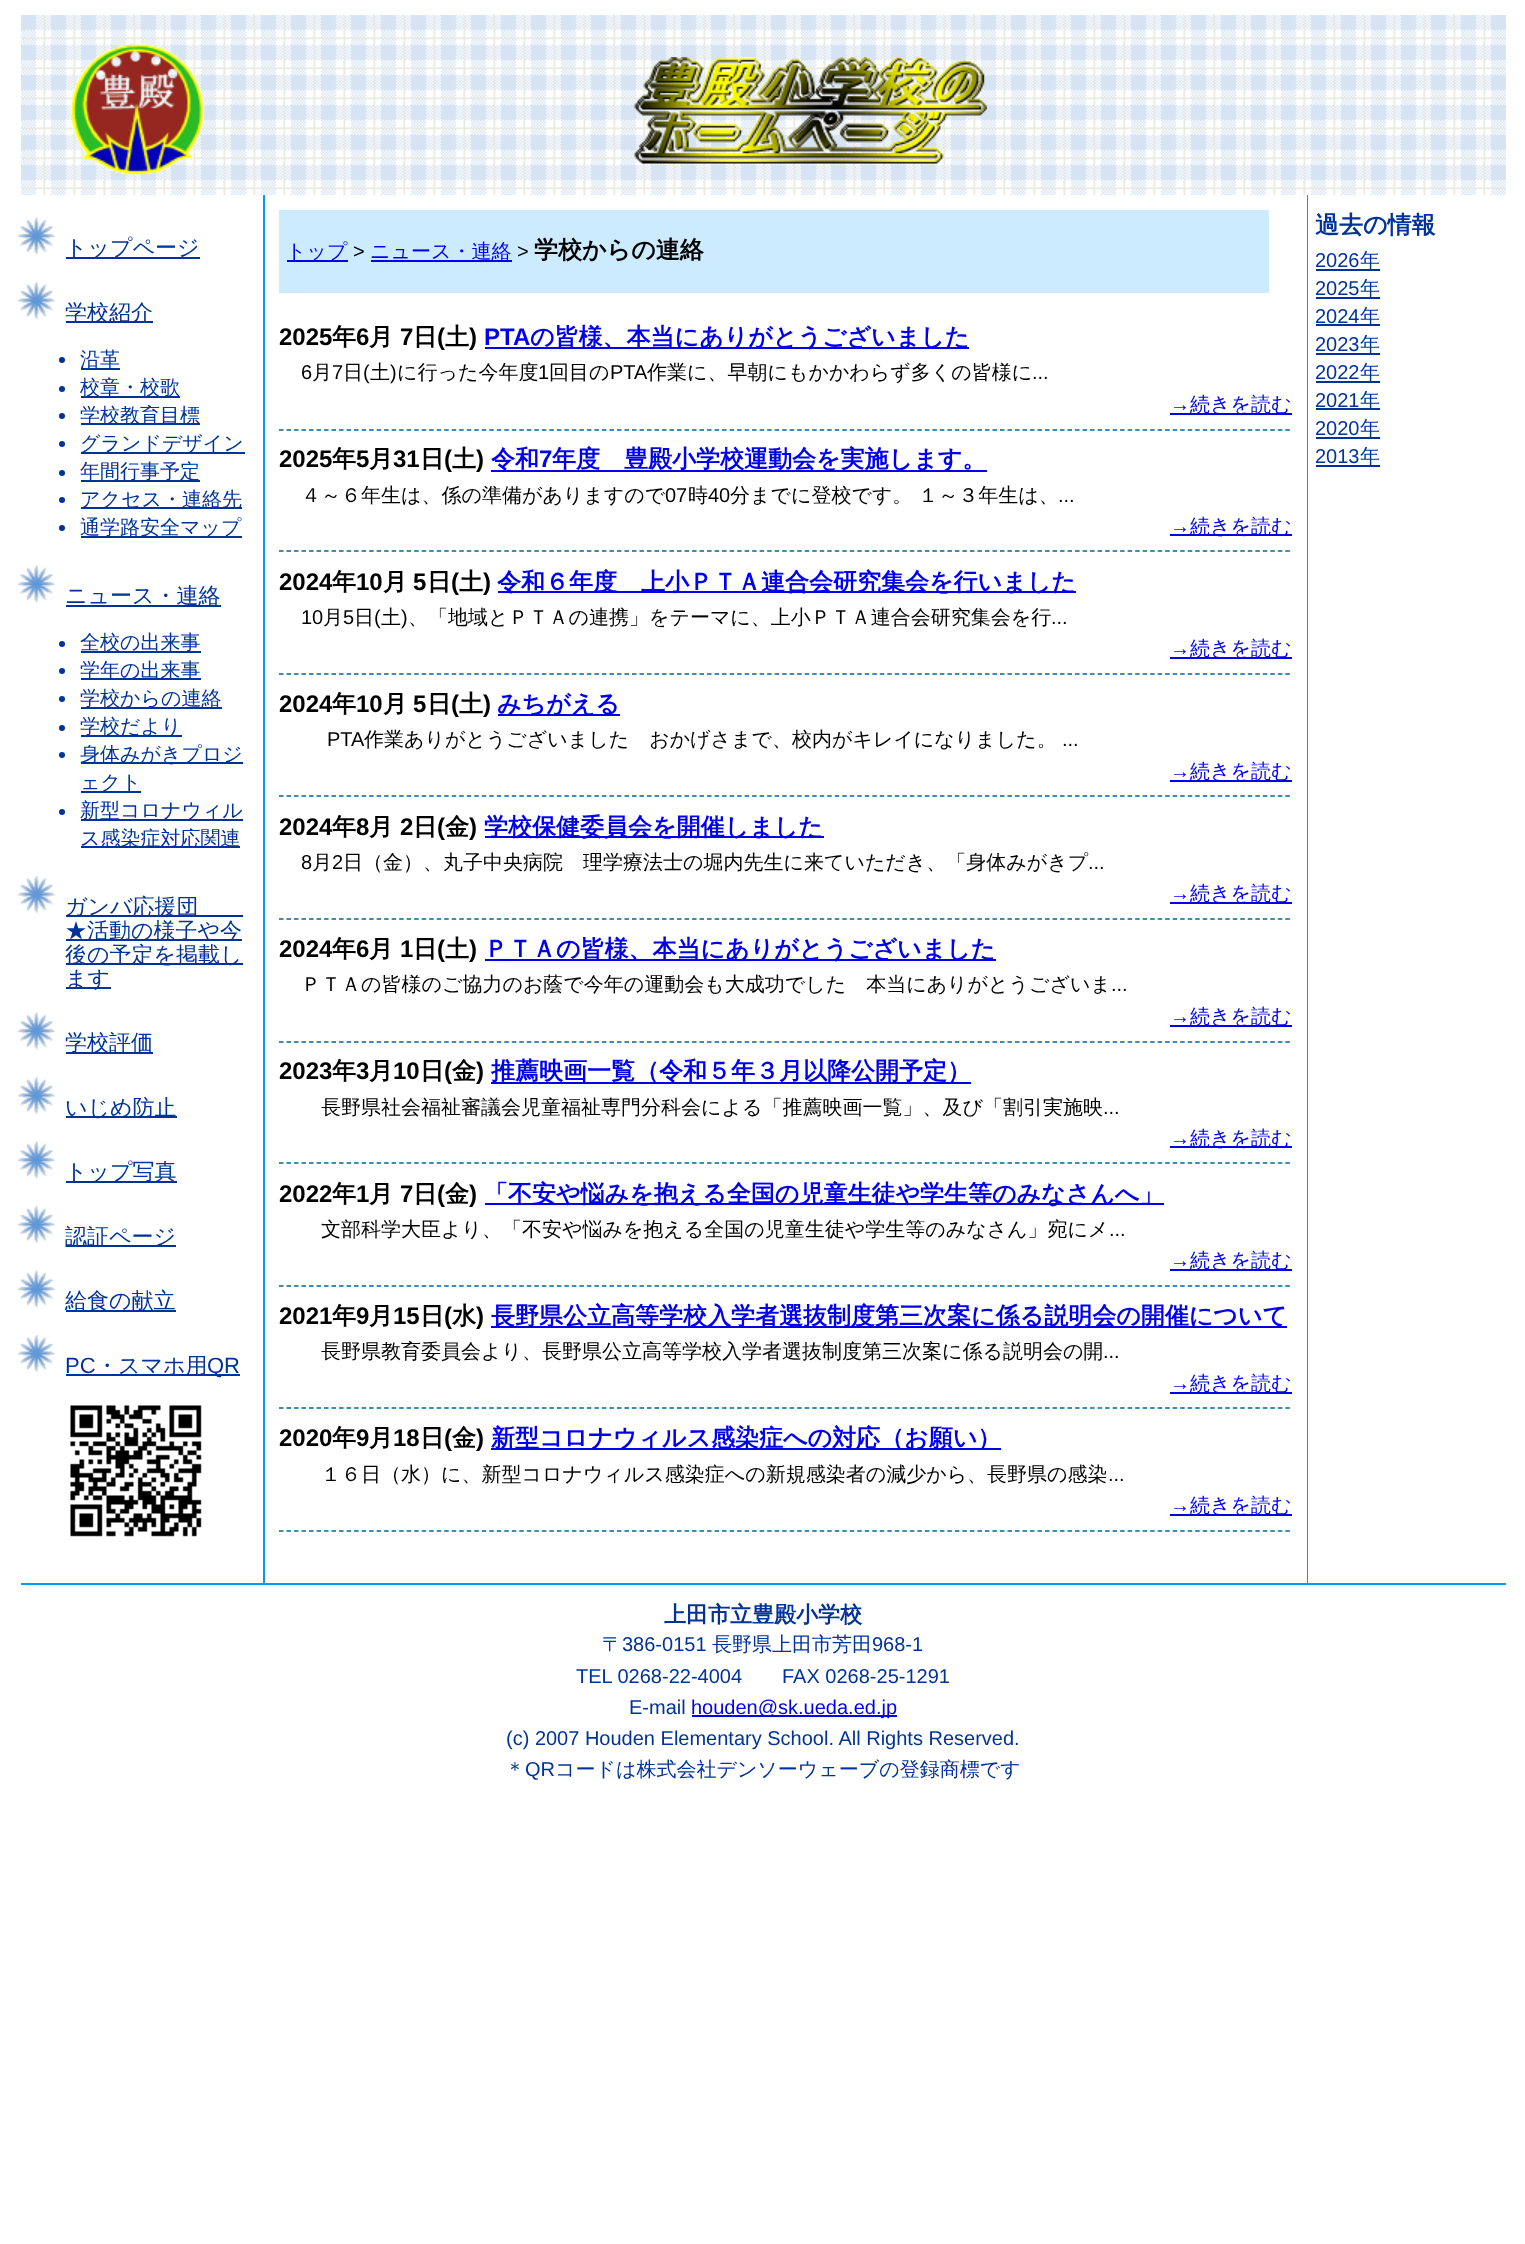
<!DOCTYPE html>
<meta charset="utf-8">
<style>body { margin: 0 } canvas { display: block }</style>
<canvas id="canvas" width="1525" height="2244"></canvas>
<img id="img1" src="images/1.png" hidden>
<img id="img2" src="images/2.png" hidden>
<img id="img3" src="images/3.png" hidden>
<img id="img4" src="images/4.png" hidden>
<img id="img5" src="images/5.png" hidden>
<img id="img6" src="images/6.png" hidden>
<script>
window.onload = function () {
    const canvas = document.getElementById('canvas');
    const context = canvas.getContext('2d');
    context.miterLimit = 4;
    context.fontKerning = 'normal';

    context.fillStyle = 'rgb(255, 255, 255)';
    context.fillRect(0, 0, 1525, 2244);
    context.drawImage(document.getElementById('img1'), 21, 15, 1485, 180);
    context.drawImage(document.getElementById('img2'), 70, 40, 135, 136);
    context.drawImage(document.getElementById('img3'), 634, 57, 353, 107);
    context.drawImage(document.getElementById('img4'), 18, 217, 38, 38);
    context.fillStyle = 'rgb(0, 51, 153)';
    context.fillRect(66, 257, 134, 2);
    context.drawImage(document.getElementById('img5'), 18, 282, 38, 38);
    context.fillRect(66, 321, 87, 2);
    context.beginPath();
    context.arc(62, 360, 3, 0, 2 * Math.PI);
    context.fill();
    context.fillRect(81, 368, 39, 2);
    context.beginPath();
    context.arc(62, 389, 3, 0, 2 * Math.PI);
    context.fill();
    context.fillRect(81, 396, 99, 2);
    context.beginPath();
    context.arc(62, 416, 3, 0, 2 * Math.PI);
    context.fill();
    context.fillRect(81, 423, 119, 2);
    context.beginPath();
    context.arc(62, 444, 3, 0, 2 * Math.PI);
    context.fill();
    context.fillRect(81, 452, 164, 2);
    context.beginPath();
    context.arc(62, 473, 3, 0, 2 * Math.PI);
    context.fill();
    context.fillRect(81, 480, 119, 2);
    context.beginPath();
    context.arc(62, 500, 3, 0, 2 * Math.PI);
    context.fill();
    context.fillRect(81, 507, 161, 2);
    context.beginPath();
    context.arc(62, 528, 3, 0, 2 * Math.PI);
    context.fill();
    context.fillRect(81, 536, 161, 2);
    context.drawImage(document.getElementById('img4'), 18, 565, 38, 38);
    context.fillRect(66, 605, 155, 2);
    context.beginPath();
    context.arc(62, 644, 3, 0, 2 * Math.PI);
    context.fill();
    context.fillRect(81, 651, 120, 2);
    context.beginPath();
    context.arc(62, 671, 3, 0, 2 * Math.PI);
    context.fill();
    context.fillRect(81, 678, 120, 2);
    context.beginPath();
    context.arc(62, 699, 3, 0, 2 * Math.PI);
    context.fill();
    context.fillRect(81, 707, 141, 2);
    context.beginPath();
    context.arc(62, 728, 3, 0, 2 * Math.PI);
    context.fill();
    context.fillRect(81, 735, 101, 2);
    context.beginPath();
    context.arc(62, 755, 3, 0, 2 * Math.PI);
    context.fill();
    context.fillRect(81, 762, 162, 2);
    context.fillRect(81, 791, 60, 2);
    context.beginPath();
    context.arc(62, 812, 3, 0, 2 * Math.PI);
    context.fill();
    context.fillRect(81, 819, 162, 2);
    context.fillRect(81, 846, 159, 2);
    context.drawImage(document.getElementById('img5'), 18, 876, 38, 38);
    context.fillRect(66, 915, 177, 2);
    context.fillRect(66, 939, 176, 2);
    context.fillRect(66, 963, 177, 2);
    context.fillRect(66, 987, 45, 2);
    context.drawImage(document.getElementById('img4'), 18, 1012, 38, 38);
    context.fillRect(66, 1052, 87, 2);
    context.drawImage(document.getElementById('img5'), 18, 1077, 38, 38);
    context.fillRect(66, 1116, 111, 2);
    context.drawImage(document.getElementById('img4'), 18, 1141, 38, 38);
    context.fillRect(66, 1181, 111, 2);
    context.drawImage(document.getElementById('img5'), 18, 1206, 38, 38);
    context.fillRect(66, 1245, 110, 2);
    context.drawImage(document.getElementById('img4'), 18, 1270, 38, 38);
    context.fillRect(66, 1310, 110, 2);
    context.drawImage(document.getElementById('img5'), 18, 1335, 38, 38);
    context.fillRect(66, 1374, 174, 2);
    context.drawImage(document.getElementById('img6'), 70, 1405, 132, 132);
    context.fillStyle = 'rgb(0, 153, 255)';
    context.fillRect(1307, 195, 1, 1388);
    context.fillRect(263, 195, 2, 1388);
    context.fillStyle = 'rgb(204, 235, 255)';
    context.fillRect(279, 210, 990, 83);
    context.fillStyle = 'rgb(0, 0, 238)';
    context.fillRect(287, 260, 61, 2);
    context.fillRect(371, 260, 141, 2);
    context.beginPath();
    context.moveTo(279, 430);
    context.lineTo(1291.5, 430);
    context.strokeStyle = 'rgb(0, 102, 153)';
    context.lineWidth = 1.5;
    context.setLineDash([4.5, 3.01]);
    context.stroke();
    context.fillRect(485, 347, 484, 2);
    context.fillRect(1170, 413, 122, 2);
    context.beginPath();
    context.moveTo(279, 551);
    context.lineTo(1291.5, 551);
    context.stroke();
    context.fillRect(491, 470, 496, 2);
    context.fillRect(1170, 534, 122, 2);
    context.beginPath();
    context.moveTo(279, 674);
    context.lineTo(1291.5, 674);
    context.stroke();
    context.fillRect(498, 591, 578, 2);
    context.fillRect(1170, 657, 122, 2);
    context.beginPath();
    context.moveTo(279, 796);
    context.lineTo(1291.5, 796);
    context.stroke();
    context.fillRect(498, 714, 122, 2);
    context.fillRect(1170, 780, 122, 2);
    context.beginPath();
    context.moveTo(279, 919);
    context.lineTo(1291.5, 919);
    context.stroke();
    context.fillRect(485, 836, 339, 2);
    context.fillRect(1170, 902, 122, 2);
    context.beginPath();
    context.moveTo(279, 1042);
    context.lineTo(1291.5, 1042);
    context.stroke();
    context.fillRect(485, 959, 511, 2);
    context.fillRect(1170, 1025, 122, 2);
    context.beginPath();
    context.moveTo(279, 1163);
    context.lineTo(1291.5, 1163);
    context.stroke();
    context.fillRect(491, 1082, 480, 2);
    context.fillRect(1170, 1146, 122, 2);
    context.beginPath();
    context.moveTo(279, 1286);
    context.lineTo(1291.5, 1286);
    context.stroke();
    context.fillRect(485, 1203, 679, 2);
    context.fillRect(1170, 1269, 122, 2);
    context.beginPath();
    context.moveTo(279, 1408);
    context.lineTo(1291.5, 1408);
    context.stroke();
    context.fillRect(491, 1326, 796, 2);
    context.fillRect(1170, 1392, 122, 2);
    context.beginPath();
    context.moveTo(279, 1531);
    context.lineTo(1291.5, 1531);
    context.stroke();
    context.fillRect(491, 1448, 510, 2);
    context.fillRect(1170, 1514, 122, 2);
    context.fillStyle = 'rgb(0, 51, 153)';
    context.fillRect(1316, 269, 64, 2);
    context.fillRect(1316, 297, 64, 2);
    context.fillRect(1316, 324, 64, 2);
    context.fillRect(1316, 353, 64, 2);
    context.fillRect(1316, 381, 64, 2);
    context.fillRect(1316, 408, 64, 2);
    context.fillRect(1316, 437, 64, 2);
    context.fillRect(1316, 465, 64, 2);
    context.fillStyle = 'rgb(0, 153, 255)';
    context.fillRect(21, 1583, 1485, 2);
    context.fillStyle = 'rgb(0, 0, 238)';
    context.fillRect(692, 1715, 205, 2);
    context.font = '500 22px WenQuanYi Zen Hei';
    context.fillStyle = 'rgb(0, 51, 153)';
    context.fillText('トップページ', 65, 255);
    context.fillText('学校紹介', 65, 320);
    context.font = '500 20px WenQuanYi Zen Hei';
    context.fillText('沿革', 80, 366);
    context.fillText('校章・校歌', 80, 394);
    context.fillText('学校教育目標', 80, 422);
    context.fillText('グランドデザイン', 80, 450);
    context.fillText('年間行事予定', 80, 478);
    context.fillText('アクセス・連絡先', 80, 506);
    context.fillText('通学路安全マップ', 80, 534);
    context.font = '500 22px WenQuanYi Zen Hei';
    context.fillText('ニュース・連絡', 65, 603);
    context.font = '500 20px WenQuanYi Zen Hei';
    context.fillText('全校の出来事', 80, 649);
    context.fillText('学年の出来事', 80, 677);
    context.fillText('学校からの連絡', 80, 705);
    context.fillText('学校だより', 80, 733);
    context.fillText('身体みがきプロジ', 80, 761);
    context.fillText('ェクト', 80, 789);
    context.fillText('新型コロナウィル', 80, 817);
    context.fillText('ス感染症対応関連', 80, 845);
    context.font = '500 22px WenQuanYi Zen Hei';
    context.fillText('ガンバ応援団', 65, 914);
    context.fillText('★活動の様子や今', 65, 938);
    context.fillText('後の予定を掲載し', 65, 962);
    context.fillText('ます', 65, 986);
    context.fillText('学校評価', 65, 1050);
    context.fillText('いじめ防止', 65, 1115);
    context.fillText('トップ写真', 65, 1179);
    context.fillText('認証ページ', 65, 1244);
    context.fillText('給食の献立', 65, 1308);
    context.font = '22px Liberation Sans';
    context.fillText('PC', 65, 1373);
    context.font = '500 22px WenQuanYi Zen Hei';
    context.fillText('・スマホ用', 96, 1373);
    context.font = '22px Liberation Sans';
    context.fillText('QR', 207, 1373);
    context.font = '500 20px WenQuanYi Zen Hei';
    context.fillStyle = 'rgb(0, 0, 238)';
    context.fillText('トップ', 286, 258);
    context.font = '20px Liberation Sans';
    context.fillStyle = 'rgb(0, 0, 0)';
    context.fillText('>', 353, 258);
    context.font = '500 20px WenQuanYi Zen Hei';
    context.fillStyle = 'rgb(0, 0, 238)';
    context.fillText('ニュース・連絡', 370, 258);
    context.font = '20px Liberation Sans';
    context.fillStyle = 'rgb(0, 0, 0)';
    context.fillText('>', 517, 258);
    context.font = 'bold 24px WenQuanYi Zen Hei';
    context.fillText('学校からの連絡', 534, 258);
    context.font = 'bold 24px Liberation Sans';
    context.fillText('2025', 279, 345);
    context.font = 'bold 24px WenQuanYi Zen Hei';
    context.fillText('年', 332, 345);
    context.font = 'bold 24px Liberation Sans';
    context.fillText('6', 356, 345);
    context.font = 'bold 24px WenQuanYi Zen Hei';
    context.fillText('月', 369, 345);
    context.font = 'bold 24px Liberation Sans';
    context.fillText('7', 400, 345);
    context.font = 'bold 24px WenQuanYi Zen Hei';
    context.fillText('日', 413, 345);
    context.font = 'bold 24px Liberation Sans';
    context.fillText('(', 437, 345);
    context.font = 'bold 24px WenQuanYi Zen Hei';
    context.fillText('土', 445, 345);
    context.font = 'bold 24px Liberation Sans';
    context.fillText(')', 469, 345);
    context.fillStyle = 'rgb(0, 0, 238)';
    context.fillText('PTA', 484, 345);
    context.font = 'bold 24px WenQuanYi Zen Hei';
    context.fillText('の皆様、本当にありがとうございました', 530, 345);
    context.font = '20px Liberation Sans';
    context.fillStyle = 'rgb(0, 0, 0)';
    context.fillText('6', 301, 379);
    context.font = '500 20px WenQuanYi Zen Hei';
    context.fillText('月', 312, 379);
    context.font = '20px Liberation Sans';
    context.fillText('7', 332, 379);
    context.font = '500 20px WenQuanYi Zen Hei';
    context.fillText('日', 343, 379);
    context.font = '20px Liberation Sans';
    context.fillText('(', 363, 379);
    context.font = '500 20px WenQuanYi Zen Hei';
    context.fillText('土', 370, 379);
    context.font = '20px Liberation Sans';
    context.fillText(')', 390, 379);
    context.font = '500 20px WenQuanYi Zen Hei';
    context.fillText('に行った今年度', 397, 379);
    context.font = '20px Liberation Sans';
    context.fillText('1', 538, 379);
    context.font = '500 20px WenQuanYi Zen Hei';
    context.fillText('回目の', 549, 379);
    context.font = '20px Liberation Sans';
    context.fillText('PTA', 610, 379);
    context.font = '500 20px WenQuanYi Zen Hei';
    context.fillText('作業に、早朝にもかかわらず多くの皆様に', 647, 379);
    context.font = '20px Liberation Sans';
    context.fillText('...', 1032, 379);
    context.fillStyle = 'rgb(0, 0, 238)';
    context.fillText('→', 1170, 411);
    context.font = '500 20px WenQuanYi Zen Hei';
    context.fillText('続きを読む', 1190, 411);
    context.font = 'bold 24px Liberation Sans';
    context.fillStyle = 'rgb(0, 0, 0)';
    context.fillText('2025', 279, 467);
    context.font = 'bold 24px WenQuanYi Zen Hei';
    context.fillText('年', 332, 467);
    context.font = 'bold 24px Liberation Sans';
    context.fillText('5', 356, 467);
    context.font = 'bold 24px WenQuanYi Zen Hei';
    context.fillText('月', 369, 467);
    context.font = 'bold 24px Liberation Sans';
    context.fillText('31', 393, 467);
    context.font = 'bold 24px WenQuanYi Zen Hei';
    context.fillText('日', 420, 467);
    context.font = 'bold 24px Liberation Sans';
    context.fillText('(', 444, 467);
    context.font = 'bold 24px WenQuanYi Zen Hei';
    context.fillText('土', 452, 467);
    context.font = 'bold 24px Liberation Sans';
    context.fillText(')', 476, 467);
    context.font = 'bold 24px WenQuanYi Zen Hei';
    context.fillStyle = 'rgb(0, 0, 238)';
    context.fillText('令和', 491, 467);
    context.font = 'bold 24px Liberation Sans';
    context.fillText('7', 539, 467);
    context.font = 'bold 24px WenQuanYi Zen Hei';
    context.fillText('年度　豊殿小学校運動会を実施します。', 552, 467);
    context.font = '500 20px WenQuanYi Zen Hei';
    context.fillStyle = 'rgb(0, 0, 0)';
    context.fillText('４～６年生は、係の準備がありますので', 301, 502);
    context.font = '20px Liberation Sans';
    context.fillText('07', 665, 502);
    context.font = '500 20px WenQuanYi Zen Hei';
    context.fillText('時', 688, 502);
    context.font = '20px Liberation Sans';
    context.fillText('40', 708, 502);
    context.font = '500 20px WenQuanYi Zen Hei';
    context.fillText('分までに登校です。 １～３年生は、', 730, 502);
    context.font = '20px Liberation Sans';
    context.fillText('...', 1058, 502);
    context.fillStyle = 'rgb(0, 0, 238)';
    context.fillText('→', 1170, 533);
    context.font = '500 20px WenQuanYi Zen Hei';
    context.fillText('続きを読む', 1190, 533);
    context.font = 'bold 24px Liberation Sans';
    context.fillStyle = 'rgb(0, 0, 0)';
    context.fillText('2024', 279, 590);
    context.font = 'bold 24px WenQuanYi Zen Hei';
    context.fillText('年', 332, 590);
    context.font = 'bold 24px Liberation Sans';
    context.fillText('10', 356, 590);
    context.font = 'bold 24px WenQuanYi Zen Hei';
    context.fillText('月', 383, 590);
    context.font = 'bold 24px Liberation Sans';
    context.fillText('5', 413, 590);
    context.font = 'bold 24px WenQuanYi Zen Hei';
    context.fillText('日', 427, 590);
    context.font = 'bold 24px Liberation Sans';
    context.fillText('(', 451, 590);
    context.font = 'bold 24px WenQuanYi Zen Hei';
    context.fillText('土', 459, 590);
    context.font = 'bold 24px Liberation Sans';
    context.fillText(')', 483, 590);
    context.font = 'bold 24px WenQuanYi Zen Hei';
    context.fillStyle = 'rgb(0, 0, 238)';
    context.fillText('令和６年度　上小ＰＴＡ連合会研究集会を行いました', 497, 590);
    context.font = '20px Liberation Sans';
    context.fillStyle = 'rgb(0, 0, 0)';
    context.fillText('10', 301, 624);
    context.font = '500 20px WenQuanYi Zen Hei';
    context.fillText('月', 323, 624);
    context.font = '20px Liberation Sans';
    context.fillText('5', 343, 624);
    context.font = '500 20px WenQuanYi Zen Hei';
    context.fillText('日', 354, 624);
    context.font = '20px Liberation Sans';
    context.fillText('(', 374, 624);
    context.font = '500 20px WenQuanYi Zen Hei';
    context.fillText('土', 381, 624);
    context.font = '20px Liberation Sans';
    context.fillText(')', 401, 624);
    context.font = '500 20px WenQuanYi Zen Hei';
    context.fillText('、「地域とＰＴＡの連携」をテーマに、上小ＰＴＡ連合会研究集会を行', 408, 624);
    context.font = '20px Liberation Sans';
    context.fillText('...', 1051, 624);
    context.fillStyle = 'rgb(0, 0, 238)';
    context.fillText('→', 1170, 655);
    context.font = '500 20px WenQuanYi Zen Hei';
    context.fillText('続きを読む', 1190, 655);
    context.font = 'bold 24px Liberation Sans';
    context.fillStyle = 'rgb(0, 0, 0)';
    context.fillText('2024', 279, 712);
    context.font = 'bold 24px WenQuanYi Zen Hei';
    context.fillText('年', 332, 712);
    context.font = 'bold 24px Liberation Sans';
    context.fillText('10', 356, 712);
    context.font = 'bold 24px WenQuanYi Zen Hei';
    context.fillText('月', 383, 712);
    context.font = 'bold 24px Liberation Sans';
    context.fillText('5', 413, 712);
    context.font = 'bold 24px WenQuanYi Zen Hei';
    context.fillText('日', 427, 712);
    context.font = 'bold 24px Liberation Sans';
    context.fillText('(', 451, 712);
    context.font = 'bold 24px WenQuanYi Zen Hei';
    context.fillText('土', 459, 712);
    context.font = 'bold 24px Liberation Sans';
    context.fillText(')', 483, 712);
    context.font = 'bold 24px WenQuanYi Zen Hei';
    context.fillStyle = 'rgb(0, 0, 238)';
    context.fillText('みちがえる', 497, 712);
    context.font = '20px Liberation Sans';
    context.fillStyle = 'rgb(0, 0, 0)';
    context.fillText('PTA', 327, 746);
    context.font = '500 20px WenQuanYi Zen Hei';
    context.fillText('作業ありがとうございました　おかげさまで、校内がキレイになりました。', 364, 746);
    context.font = '20px Liberation Sans';
    context.fillText('...', 1062, 746);
    context.fillStyle = 'rgb(0, 0, 238)';
    context.fillText('→', 1170, 778);
    context.font = '500 20px WenQuanYi Zen Hei';
    context.fillText('続きを読む', 1190, 778);
    context.font = 'bold 24px Liberation Sans';
    context.fillStyle = 'rgb(0, 0, 0)';
    context.fillText('2024', 279, 835);
    context.font = 'bold 24px WenQuanYi Zen Hei';
    context.fillText('年', 332, 835);
    context.font = 'bold 24px Liberation Sans';
    context.fillText('8', 356, 835);
    context.font = 'bold 24px WenQuanYi Zen Hei';
    context.fillText('月', 369, 835);
    context.font = 'bold 24px Liberation Sans';
    context.fillText('2', 400, 835);
    context.font = 'bold 24px WenQuanYi Zen Hei';
    context.fillText('日', 413, 835);
    context.font = 'bold 24px Liberation Sans';
    context.fillText('(', 437, 835);
    context.font = 'bold 24px WenQuanYi Zen Hei';
    context.fillText('金', 445, 835);
    context.font = 'bold 24px Liberation Sans';
    context.fillText(')', 469, 835);
    context.font = 'bold 24px WenQuanYi Zen Hei';
    context.fillStyle = 'rgb(0, 0, 238)';
    context.fillText('学校保健委員会を開催しました', 484, 835);
    context.font = '20px Liberation Sans';
    context.fillStyle = 'rgb(0, 0, 0)';
    context.fillText('8', 301, 869);
    context.font = '500 20px WenQuanYi Zen Hei';
    context.fillText('月', 312, 869);
    context.font = '20px Liberation Sans';
    context.fillText('2', 332, 869);
    context.font = '500 20px WenQuanYi Zen Hei';
    context.fillText('日（金）、丸子中央病院　理学療法士の堀内先生に来ていただき、「身体みがきプ', 343, 869);
    context.font = '20px Liberation Sans';
    context.fillText('...', 1088, 869);
    context.fillStyle = 'rgb(0, 0, 238)';
    context.fillText('→', 1170, 900);
    context.font = '500 20px WenQuanYi Zen Hei';
    context.fillText('続きを読む', 1190, 900);
    context.font = 'bold 24px Liberation Sans';
    context.fillStyle = 'rgb(0, 0, 0)';
    context.fillText('2024', 279, 957);
    context.font = 'bold 24px WenQuanYi Zen Hei';
    context.fillText('年', 332, 957);
    context.font = 'bold 24px Liberation Sans';
    context.fillText('6', 356, 957);
    context.font = 'bold 24px WenQuanYi Zen Hei';
    context.fillText('月', 369, 957);
    context.font = 'bold 24px Liberation Sans';
    context.fillText('1', 400, 957);
    context.font = 'bold 24px WenQuanYi Zen Hei';
    context.fillText('日', 413, 957);
    context.font = 'bold 24px Liberation Sans';
    context.fillText('(', 437, 957);
    context.font = 'bold 24px WenQuanYi Zen Hei';
    context.fillText('土', 445, 957);
    context.font = 'bold 24px Liberation Sans';
    context.fillText(')', 469, 957);
    context.font = 'bold 24px WenQuanYi Zen Hei';
    context.fillStyle = 'rgb(0, 0, 238)';
    context.fillText('ＰＴＡの皆様、本当にありがとうございました', 484, 957);
    context.font = '500 20px WenQuanYi Zen Hei';
    context.fillStyle = 'rgb(0, 0, 0)';
    context.fillText('ＰＴＡの皆様のご協力のお蔭で今年の運動会も大成功でした　本当にありがとうございま', 301, 991);
    context.font = '20px Liberation Sans';
    context.fillText('...', 1111, 991);
    context.fillStyle = 'rgb(0, 0, 238)';
    context.fillText('→', 1170, 1023);
    context.font = '500 20px WenQuanYi Zen Hei';
    context.fillText('続きを読む', 1190, 1023);
    context.font = 'bold 24px Liberation Sans';
    context.fillStyle = 'rgb(0, 0, 0)';
    context.fillText('2023', 279, 1079);
    context.font = 'bold 24px WenQuanYi Zen Hei';
    context.fillText('年', 332, 1079);
    context.font = 'bold 24px Liberation Sans';
    context.fillText('3', 356, 1079);
    context.font = 'bold 24px WenQuanYi Zen Hei';
    context.fillText('月', 369, 1079);
    context.font = 'bold 24px Liberation Sans';
    context.fillText('10', 393, 1079);
    context.font = 'bold 24px WenQuanYi Zen Hei';
    context.fillText('日', 420, 1079);
    context.font = 'bold 24px Liberation Sans';
    context.fillText('(', 444, 1079);
    context.font = 'bold 24px WenQuanYi Zen Hei';
    context.fillText('金', 452, 1079);
    context.font = 'bold 24px Liberation Sans';
    context.fillText(')', 476, 1079);
    context.font = 'bold 24px WenQuanYi Zen Hei';
    context.fillStyle = 'rgb(0, 0, 238)';
    context.fillText('推薦映画一覧（令和５年３月以降公開予定）', 491, 1079);
    context.font = '500 20px WenQuanYi Zen Hei';
    context.fillStyle = 'rgb(0, 0, 0)';
    context.fillText('長野県社会福祉審議会児童福祉専門分科会による「推薦映画一覧」、及び「割引実施映', 321, 1114);
    context.font = '20px Liberation Sans';
    context.fillText('...', 1103, 1114);
    context.fillStyle = 'rgb(0, 0, 238)';
    context.fillText('→', 1170, 1145);
    context.font = '500 20px WenQuanYi Zen Hei';
    context.fillText('続きを読む', 1190, 1145);
    context.font = 'bold 24px Liberation Sans';
    context.fillStyle = 'rgb(0, 0, 0)';
    context.fillText('2022', 279, 1202);
    context.font = 'bold 24px WenQuanYi Zen Hei';
    context.fillText('年', 332, 1202);
    context.font = 'bold 24px Liberation Sans';
    context.fillText('1', 356, 1202);
    context.font = 'bold 24px WenQuanYi Zen Hei';
    context.fillText('月', 369, 1202);
    context.font = 'bold 24px Liberation Sans';
    context.fillText('7', 400, 1202);
    context.font = 'bold 24px WenQuanYi Zen Hei';
    context.fillText('日', 413, 1202);
    context.font = 'bold 24px Liberation Sans';
    context.fillText('(', 437, 1202);
    context.font = 'bold 24px WenQuanYi Zen Hei';
    context.fillText('金', 445, 1202);
    context.font = 'bold 24px Liberation Sans';
    context.fillText(')', 469, 1202);
    context.font = 'bold 24px WenQuanYi Zen Hei';
    context.fillStyle = 'rgb(0, 0, 238)';
    context.fillText('「不安や悩みを抱える全国の児童生徒や学生等のみなさんへ」', 484, 1202);
    context.font = '500 20px WenQuanYi Zen Hei';
    context.fillStyle = 'rgb(0, 0, 0)';
    context.fillText('文部科学大臣より、「不安や悩みを抱える全国の児童生徒や学生等のみなさん」宛にメ', 321, 1236);
    context.font = '20px Liberation Sans';
    context.fillText('...', 1109, 1236);
    context.fillStyle = 'rgb(0, 0, 238)';
    context.fillText('→', 1170, 1267);
    context.font = '500 20px WenQuanYi Zen Hei';
    context.fillText('続きを読む', 1190, 1267);
    context.font = 'bold 24px Liberation Sans';
    context.fillStyle = 'rgb(0, 0, 0)';
    context.fillText('2021', 279, 1324);
    context.font = 'bold 24px WenQuanYi Zen Hei';
    context.fillText('年', 332, 1324);
    context.font = 'bold 24px Liberation Sans';
    context.fillText('9', 356, 1324);
    context.font = 'bold 24px WenQuanYi Zen Hei';
    context.fillText('月', 369, 1324);
    context.font = 'bold 24px Liberation Sans';
    context.fillText('15', 393, 1324);
    context.font = 'bold 24px WenQuanYi Zen Hei';
    context.fillText('日', 420, 1324);
    context.font = 'bold 24px Liberation Sans';
    context.fillText('(', 444, 1324);
    context.font = 'bold 24px WenQuanYi Zen Hei';
    context.fillText('水', 452, 1324);
    context.font = 'bold 24px Liberation Sans';
    context.fillText(')', 476, 1324);
    context.font = 'bold 24px WenQuanYi Zen Hei';
    context.fillStyle = 'rgb(0, 0, 238)';
    context.fillText('長野県公立高等学校入学者選抜制度第三次案に係る説明会の開催について', 491, 1324);
    context.font = '500 20px WenQuanYi Zen Hei';
    context.fillStyle = 'rgb(0, 0, 0)';
    context.fillText('長野県教育委員会より、長野県公立高等学校入学者選抜制度第三次案に係る説明会の開', 321, 1358);
    context.font = '20px Liberation Sans';
    context.fillText('...', 1103, 1358);
    context.fillStyle = 'rgb(0, 0, 238)';
    context.fillText('→', 1170, 1390);
    context.font = '500 20px WenQuanYi Zen Hei';
    context.fillText('続きを読む', 1190, 1390);
    context.font = 'bold 24px Liberation Sans';
    context.fillStyle = 'rgb(0, 0, 0)';
    context.fillText('2020', 279, 1446);
    context.font = 'bold 24px WenQuanYi Zen Hei';
    context.fillText('年', 332, 1446);
    context.font = 'bold 24px Liberation Sans';
    context.fillText('9', 356, 1446);
    context.font = 'bold 24px WenQuanYi Zen Hei';
    context.fillText('月', 369, 1446);
    context.font = 'bold 24px Liberation Sans';
    context.fillText('18', 393, 1446);
    context.font = 'bold 24px WenQuanYi Zen Hei';
    context.fillText('日', 420, 1446);
    context.font = 'bold 24px Liberation Sans';
    context.fillText('(', 444, 1446);
    context.font = 'bold 24px WenQuanYi Zen Hei';
    context.fillText('金', 452, 1446);
    context.font = 'bold 24px Liberation Sans';
    context.fillText(')', 476, 1446);
    context.font = 'bold 24px WenQuanYi Zen Hei';
    context.fillStyle = 'rgb(0, 0, 238)';
    context.fillText('新型コロナウィルス感染症への対応（お願い）', 491, 1446);
    context.font = '500 20px WenQuanYi Zen Hei';
    context.fillStyle = 'rgb(0, 0, 0)';
    context.fillText('１６日（水）に、新型コロナウィルス感染症への新規感染者の減少から、長野県の感染', 321, 1481);
    context.font = '20px Liberation Sans';
    context.fillText('...', 1108, 1481);
    context.fillStyle = 'rgb(0, 0, 238)';
    context.fillText('→', 1170, 1512);
    context.font = '500 20px WenQuanYi Zen Hei';
    context.fillText('続きを読む', 1190, 1512);
    context.font = 'bold 24px WenQuanYi Zen Hei';
    context.fillStyle = 'rgb(0, 51, 153)';
    context.fillText('過去の情報', 1315, 233);
    context.font = '20px Liberation Sans';
    context.fillText('2026', 1315, 267);
    context.font = '500 20px WenQuanYi Zen Hei';
    context.fillText('年', 1360, 267);
    context.font = '20px Liberation Sans';
    context.fillText('2025', 1315, 295);
    context.font = '500 20px WenQuanYi Zen Hei';
    context.fillText('年', 1360, 295);
    context.font = '20px Liberation Sans';
    context.fillText('2024', 1315, 323);
    context.font = '500 20px WenQuanYi Zen Hei';
    context.fillText('年', 1360, 323);
    context.font = '20px Liberation Sans';
    context.fillText('2023', 1315, 351);
    context.font = '500 20px WenQuanYi Zen Hei';
    context.fillText('年', 1360, 351);
    context.font = '20px Liberation Sans';
    context.fillText('2022', 1315, 379);
    context.font = '500 20px WenQuanYi Zen Hei';
    context.fillText('年', 1360, 379);
    context.font = '20px Liberation Sans';
    context.fillText('2021', 1315, 407);
    context.font = '500 20px WenQuanYi Zen Hei';
    context.fillText('年', 1360, 407);
    context.font = '20px Liberation Sans';
    context.fillText('2020', 1315, 435);
    context.font = '500 20px WenQuanYi Zen Hei';
    context.fillText('年', 1360, 435);
    context.font = '20px Liberation Sans';
    context.fillText('2013', 1315, 463);
    context.font = '500 20px WenQuanYi Zen Hei';
    context.fillText('年', 1360, 463);
    context.font = 'bold 22px WenQuanYi Zen Hei';
    context.fillText('上田市立豊殿小学校', 664, 1622);
    context.font = '500 20px WenQuanYi Zen Hei';
    context.fillText('〒', 602, 1651);
    context.font = '20px Liberation Sans';
    context.fillText('386-0151', 622, 1651);
    context.font = '500 20px WenQuanYi Zen Hei';
    context.fillText('長野県上田市芳田', 712, 1651);
    context.font = '20px Liberation Sans';
    context.fillText('968-1', 872, 1651);
    context.fillText('TEL 0268-22-4004', 576, 1683);
    context.fillText('FAX 0268-25-1291', 782, 1683);
    context.fillText('E-mail', 629, 1714);
    context.fillStyle = 'rgb(0, 0, 238)';
    context.fillText('houden@sk.ueda.ed.jp', 691, 1714);
    context.fillStyle = 'rgb(0, 51, 153)';
    context.fillText('(c) 2007 Houden Elementary School. All Rights Reserved.', 506, 1745);
    context.font = '500 20px WenQuanYi Zen Hei';
    context.fillText('＊', 505, 1776);
    context.font = '20px Liberation Sans';
    context.fillText('QR', 525, 1776);
    context.font = '500 20px WenQuanYi Zen Hei';
    context.fillText('コードは株式会社デンソーウェーブの登録商標です', 555, 1776);
};
</script>
